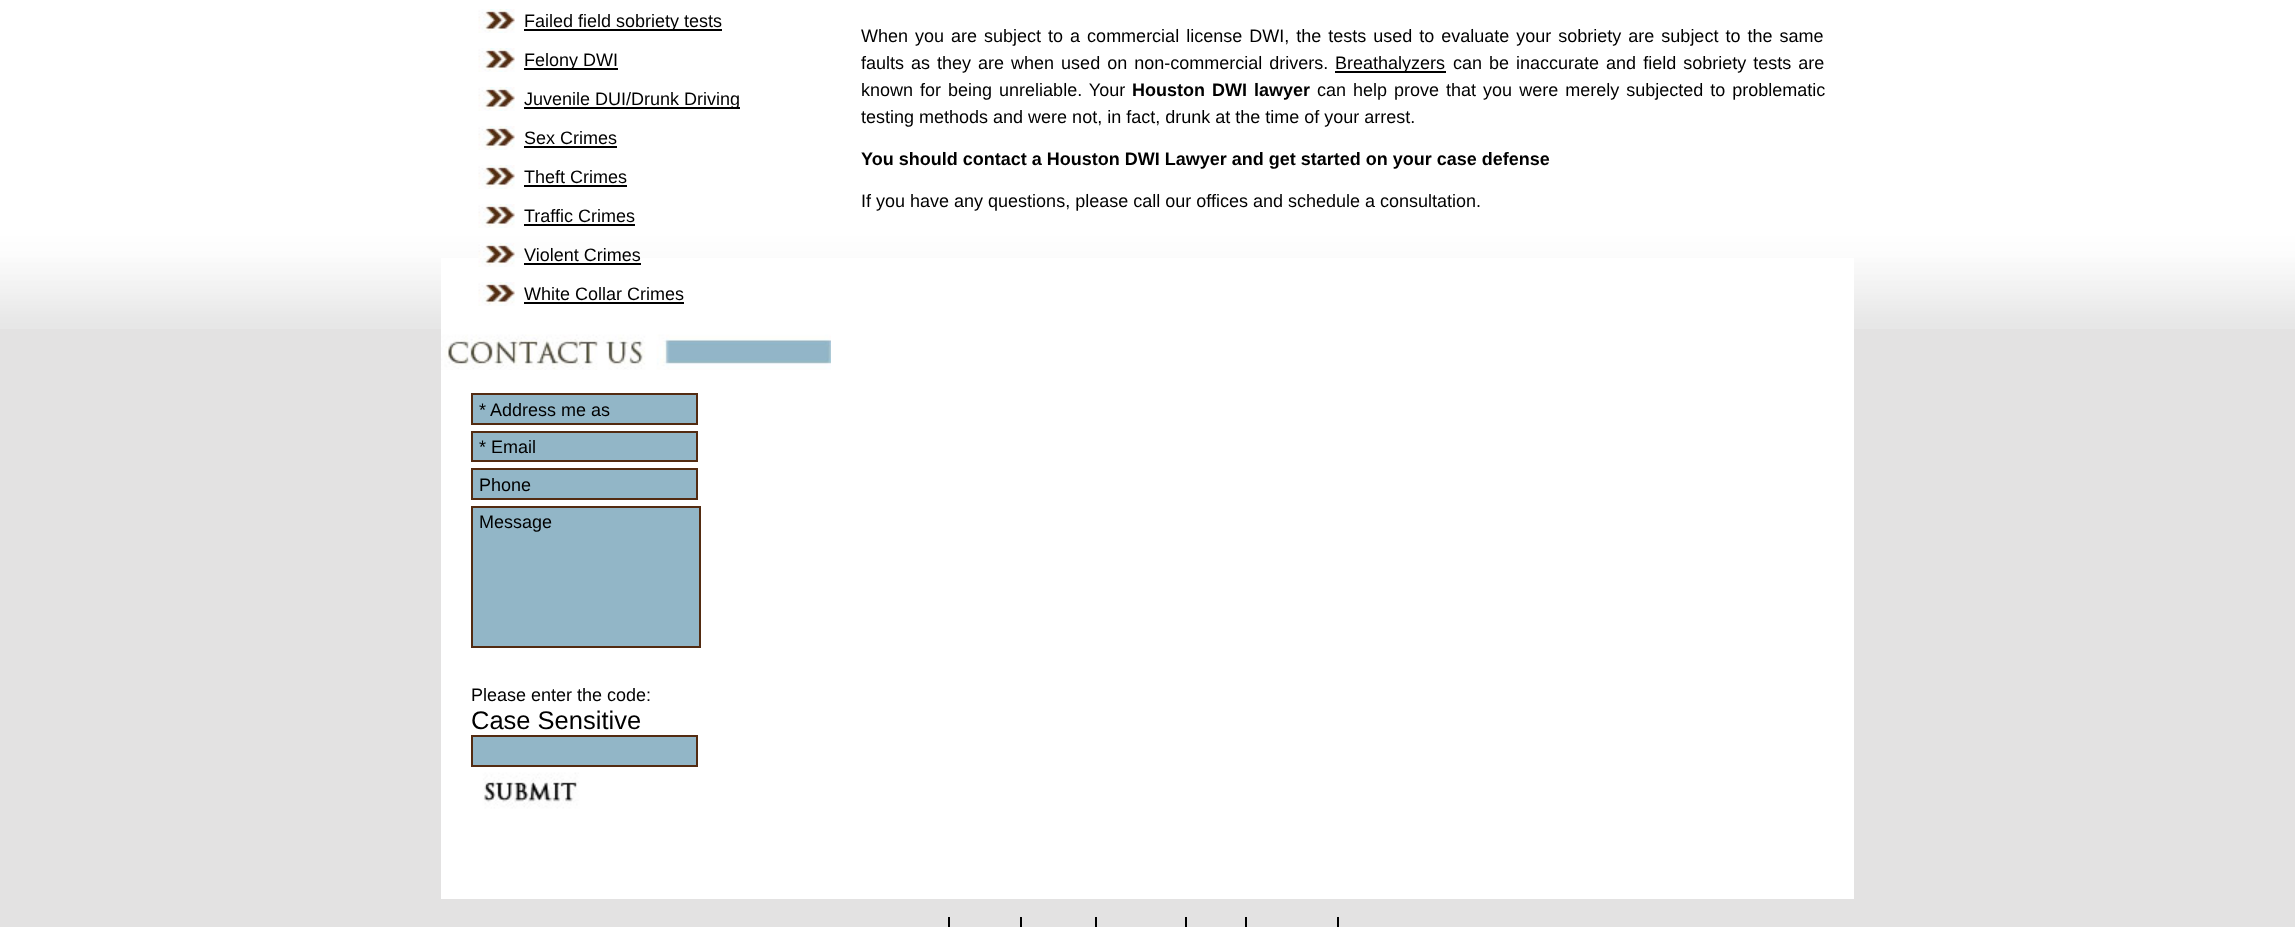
<!DOCTYPE html>
<meta charset="utf-8">
<style>body { margin: 0 } canvas { display: block }</style>
<canvas id="canvas" width="2295" height="927"></canvas>
<img id="img1" src="images/1.png" hidden>
<img id="img2" src="images/2.png" hidden>
<img id="img3" src="images/3.png" hidden>
<img id="img4" src="images/4.png" hidden>
<img id="img5" src="images/5.png" hidden>
<script>
window.onload = function () {
    const canvas = document.getElementById('canvas');
    const context = canvas.getContext('2d');
    context.miterLimit = 4;
    context.fontKerning = 'normal';

    context.fillStyle = 'rgb(227, 226, 226)';
    context.fillRect(0, 0, 2295, 927);
    context.drawImage(document.getElementById('img1'), 0, 0, 2295, 329);
    context.fillStyle = 'rgb(255, 255, 255)';
    context.fillRect(441, 258, 1413, 641);
    context.drawImage(document.getElementById('img2'), 478, 9, 37, 24);
    context.fillStyle = 'rgb(0, 0, 0)';
    context.fillRect(524, 29, 198, 2);
    context.drawImage(document.getElementById('img2'), 478, 48, 37, 24);
    context.fillRect(524, 68, 94, 2);
    context.drawImage(document.getElementById('img2'), 478, 87, 37, 24);
    context.fillRect(524, 107, 216, 2);
    context.drawImage(document.getElementById('img2'), 478, 126, 37, 24);
    context.fillRect(524, 146, 93, 2);
    context.drawImage(document.getElementById('img2'), 478, 165, 37, 24);
    context.fillRect(524, 185, 103, 2);
    context.drawImage(document.getElementById('img2'), 478, 204, 37, 24);
    context.fillRect(524, 224, 111, 2);
    context.drawImage(document.getElementById('img3'), 478, 243, 37, 24);
    context.fillRect(524, 263, 117, 2);
    context.drawImage(document.getElementById('img2'), 478, 282, 37, 24);
    context.fillRect(524, 302, 160, 2);
    context.drawImage(document.getElementById('img4'), 441, 334, 390, 36);
    context.fillStyle = 'rgb(146, 182, 199)';
    context.beginPath();
    context.rect(472, 394, 225, 30);
    context.fill();
    context.strokeStyle = 'rgb(83, 43, 17)';
    context.lineWidth = 2;
    context.stroke();
    context.beginPath();
    context.rect(472, 432, 225, 29);
    context.fill();
    context.stroke();
    context.beginPath();
    context.rect(472, 469, 225, 30);
    context.fill();
    context.stroke();
    context.beginPath();
    context.rect(472, 507, 228, 140);
    context.fill();
    context.stroke();
    context.beginPath();
    context.rect(472, 736, 225, 30);
    context.fill();
    context.stroke();
    context.drawImage(document.getElementById('img5'), 471, 772, 117, 38);
    context.fillStyle = 'rgb(0, 0, 0)';
    context.fillRect(1335, 71, 111, 2);
    context.fillRect(948, 917, 2, 10);
    context.fillRect(1020, 917, 2, 10);
    context.fillRect(1095, 917, 2, 10);
    context.fillRect(1185, 917, 2, 10);
    context.fillRect(1245, 917, 2, 10);
    context.fillRect(1337, 917, 2, 10);
    context.font = '18px Liberation Sans';
    context.fillText('Failed field sobriety tests', 524, 27);
    context.fillText('Felony DWI', 524, 66);
    context.fillText('Juvenile DUI/Drunk Driving', 524, 105);
    context.fillText('Sex Crimes', 524, 144);
    context.fillText('Theft Crimes', 524, 183);
    context.fillText('Traffic Crimes', 524, 222);
    context.fillText('Violent Crimes', 524, 261);
    context.fillText('White Collar Crimes', 524, 300);
    context.fillText('* Address me as', 479, 416);
    context.fillText('* Email', 479, 453);
    context.fillText('Phone', 479, 491);
    context.fillText('Message', 479, 528);
    context.fillText('Please enter the code:', 471, 701);
    context.font = '25.5px Liberation Sans';
    context.fillText('Case Sensitive', 471, 729);
    context.wordSpacing = '2px';
    context.font = '18px Liberation Sans';
    context.fillText('When you are subject to a commercial license DWI, the tests used to evaluate your sobriety are subject to the same', 861, 42);
    context.fillText('faults as they are when used on non-commercial drivers.', 861, 69);
    context.wordSpacing = '0px';
    context.fillText('Breathalyzers', 1335, 69);
    context.wordSpacing = '2px';
    context.fillText('can be inaccurate and field sobriety tests are', 1453, 69);
    context.fillText('known for being unreliable. Your', 861, 96);
    context.font = 'bold 18px Liberation Sans';
    context.fillText('Houston DWI lawyer', 1132, 96);
    context.font = '18px Liberation Sans';
    context.fillText('can help prove that you were merely subjected to problematic', 1317, 96);
    context.wordSpacing = '0px';
    context.fillText('testing methods and were not, in fact, drunk at the time of your arrest.', 861, 123);
    context.font = 'bold 18px Liberation Sans';
    context.fillText('You should contact a Houston DWI Lawyer and get started on your case defense', 861, 165);
    context.font = '18px Liberation Sans';
    context.fillText('If you have any questions, please call our offices and schedule a consultation.', 861, 207);
};
</script>
